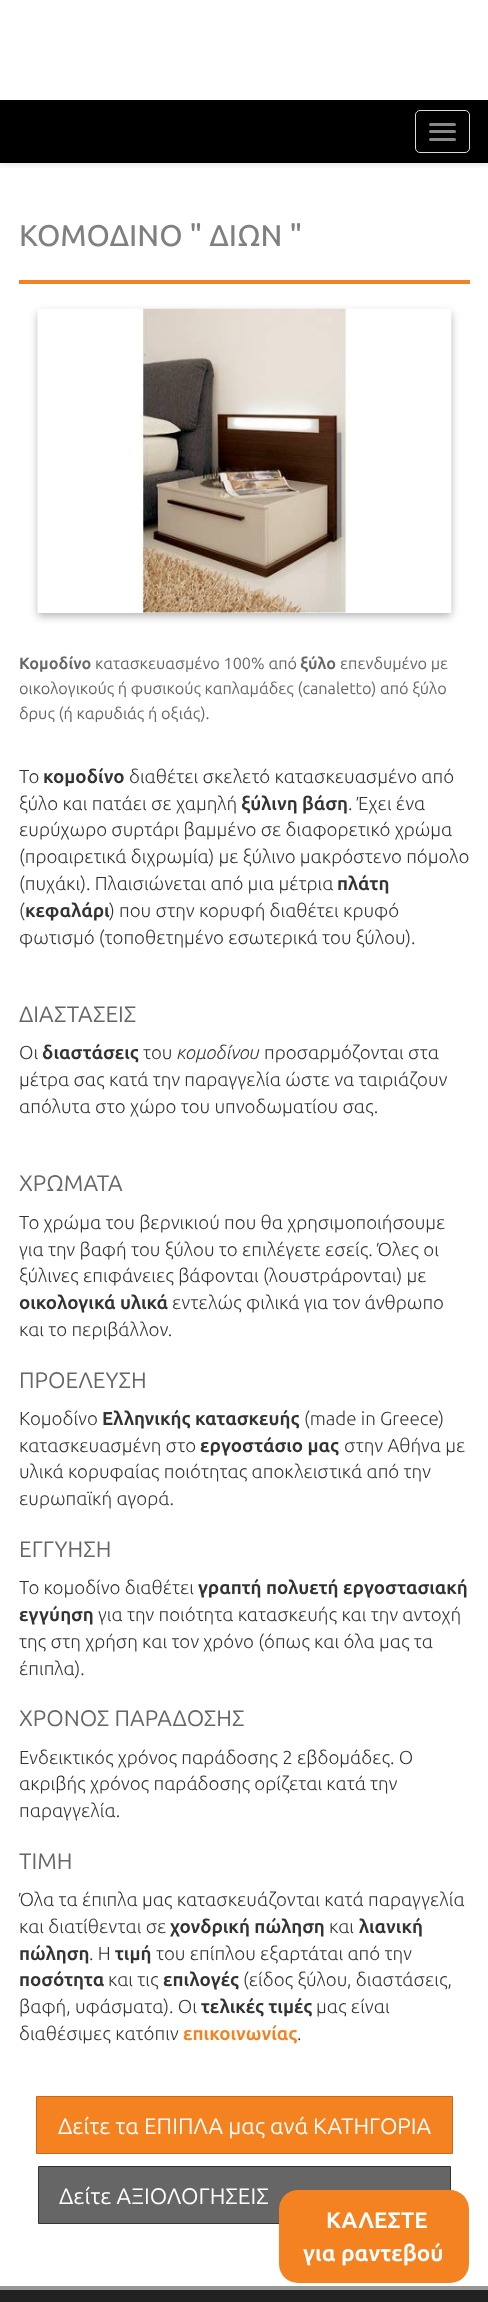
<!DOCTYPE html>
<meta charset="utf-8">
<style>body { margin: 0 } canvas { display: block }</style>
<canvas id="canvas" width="488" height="2302"></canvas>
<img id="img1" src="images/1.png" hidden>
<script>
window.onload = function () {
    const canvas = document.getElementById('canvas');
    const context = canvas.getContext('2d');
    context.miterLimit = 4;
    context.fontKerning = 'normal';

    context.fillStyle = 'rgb(255, 255, 255)';
    context.fillRect(0, 0, 488, 2302);
    context.save();
    context.beginPath();
    context.rect(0, 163, 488, 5);
    context.clip();
    context.fillStyle = 'rgba(0, 0, 0, 0.1)';
    context.filter = 'blur(3px)';
    context.beginPath();
    context.rect(0, 3, 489, 162);
    context.fill();
    context.filter = 'none';
    context.restore();
    context.fillStyle = 'rgb(0, 0, 0)';
    context.fillRect(0, 100, 488, 63);
    context.beginPath();
    context.roundRect(415.5, 110.5, 54, 42, 4.5);
    context.strokeStyle = 'rgb(221, 221, 221)';
    context.stroke();
    context.fillStyle = 'rgb(136, 136, 136)';
    context.beginPath();
    context.roundRect(429, 123, 27, 3, 1.5);
    context.fill();
    context.beginPath();
    context.roundRect(429, 130, 27, 3, 1.5);
    context.fill();
    context.beginPath();
    context.roundRect(429, 138, 27, 3, 1.5);
    context.fill();
    context.fillStyle = 'rgb(245, 130, 33)';
    context.fillRect(19, 280, 451, 4);
    context.fillStyle = 'rgba(0, 0, 0, 0.3)';
    context.filter = 'blur(4px)';
    context.beginPath();
    context.rect(38, 313, 413, 303);
    context.fill();
    context.filter = 'none';
    context.fillStyle = 'rgb(255, 255, 255)';
    context.fillRect(38, 612, 413, 1);
    context.drawImage(document.getElementById('img1'), 37, 308, 415, 305);
    context.fillStyle = 'rgb(245, 130, 33)';
    context.beginPath();
    context.rect(36.5, 2096.5, 416, 57);
    context.fill();
    context.strokeStyle = 'rgb(206, 101, 23)';
    context.stroke();
    context.fillStyle = 'rgb(102, 102, 102)';
    context.beginPath();
    context.rect(38.5, 2166.5, 412, 57);
    context.fill();
    context.strokeStyle = 'rgb(51, 51, 51)';
    context.stroke();
    context.fillStyle = 'rgb(245, 130, 33)';
    context.beginPath();
    context.roundRect(279, 2190, 190, 93, 19);
    context.fill();
    context.fillStyle = 'rgb(34, 34, 34)';
    context.fillRect(0, 2290, 488, 12);
    context.fillStyle = 'rgb(151, 152, 148)';
    context.fillRect(0, 2286, 488, 4);
    context.font = '500 30px Ubuntu';
    context.fillStyle = 'rgb(128, 128, 128)';
    context.fillText('ΚΟΜΟΔΙΝΟ " ΔΙΩΝ "', 19, 246);
    context.font = 'bold 16.25px Ubuntu';
    context.fillStyle = 'rgb(102, 102, 102)';
    context.fillText('Κομοδίνο', 19, 669);
    context.font = '16.25px Ubuntu';
    context.fillText('κατασκευασμένο 100% από', 95, 669);
    context.font = 'bold 16.25px Ubuntu';
    context.fillText('ξύλο', 300, 669);
    context.font = '16.25px Ubuntu';
    context.fillText('επενδυμένο με', 340, 669);
    context.fillText('οικολογικούς ή φυσικούς καπλαμάδες (canaletto) από ξύλο', 19, 694);
    context.fillText('δρυς (ή καρυδιάς ή οξιάς).', 19, 719);
    context.font = '300 18.75px Ubuntu';
    context.fillStyle = 'rgb(51, 51, 51)';
    context.fillText('Το', 19, 783);
    context.font = 'bold 18.75px Ubuntu';
    context.fillText('κομοδίνο', 43, 783);
    context.font = '300 18.75px Ubuntu';
    context.fillText('διαθέτει σκελετό κατασκευασμένο από', 129, 783);
    context.fillText('ξύλο και πατάει σε χαμηλή', 19, 810);
    context.font = 'bold 18.75px Ubuntu';
    context.fillText('ξύλινη βάση', 241, 810);
    context.font = '300 18.75px Ubuntu';
    context.fillText('. Έχει ένα', 348, 810);
    context.fillText('ευρύχωρο συρτάρι βαμμένο σε διαφορετικό χρώμα', 19, 836);
    context.fillText('(προαιρετικά διχρωμία) με ξύλινο μακρόστενο πόμολο', 19, 863);
    context.fillText('(πυχάκι). Πλαισιώνεται από μια μέτρια', 19, 890);
    context.font = 'bold 18.75px Ubuntu';
    context.fillText('πλάτη', 337, 890);
    context.font = '300 18.75px Ubuntu';
    context.fillText('(', 19, 917);
    context.font = 'bold 18.75px Ubuntu';
    context.fillText('κεφαλάρι', 25, 917);
    context.font = '300 18.75px Ubuntu';
    context.fillText(') που στην κορυφή διαθέτει κρυφό', 109, 917);
    context.fillText('φωτισμό (τοποθετημένο εσωτερικά του ξύλου).', 19, 944);
    context.font = '22.5px Ubuntu';
    context.fillStyle = 'rgb(102, 102, 102)';
    context.fillText('ΔΙΑΣΤΑΣΕΙΣ', 19, 1022);
    context.font = '300 18.75px Ubuntu';
    context.fillStyle = 'rgb(51, 51, 51)';
    context.fillText('Οι', 19, 1059);
    context.font = 'bold 18.75px Ubuntu';
    context.fillText('διαστάσεις', 42, 1059);
    context.font = '300 18.75px Ubuntu';
    context.fillText('του', 143, 1059);
    context.font = 'italic 300 18.75px Ubuntu';
    context.fillText('κομοδίνου', 177, 1059);
    context.font = '300 18.75px Ubuntu';
    context.fillText('προσαρμόζονται στα', 264, 1059);
    context.fillText('μέτρα σας κατά την παραγγελία ώστε να ταιριάζουν', 19, 1086);
    context.fillText('απόλυτα στο χώρο του υπνοδωματίου σας.', 19, 1113);
    context.font = '22.5px Ubuntu';
    context.fillStyle = 'rgb(102, 102, 102)';
    context.fillText('ΧΡΩΜΑΤΑ', 19, 1191);
    context.font = '300 18.75px Ubuntu';
    context.fillStyle = 'rgb(51, 51, 51)';
    context.fillText('Το χρώμα του βερνικιού που θα χρησιμοποιήσουμε', 19, 1229);
    context.fillText('για την βαφή του ξύλου το επιλέγετε εσείς. Όλες οι', 19, 1256);
    context.fillText('ξύλινες επιφάνειες βάφονται (λουστράρονται) με', 19, 1282);
    context.font = 'bold 18.75px Ubuntu';
    context.fillText('οικολογικά υλικά', 19, 1309);
    context.font = '300 18.75px Ubuntu';
    context.fillText('εντελώς φιλικά για τον άνθρωπο', 172, 1309);
    context.fillText('και το περιβάλλον.', 19, 1336);
    context.font = '22.5px Ubuntu';
    context.fillStyle = 'rgb(102, 102, 102)';
    context.fillText('ΠΡΟΕΛΕΥΣΗ', 19, 1388);
    context.font = '300 18.75px Ubuntu';
    context.fillStyle = 'rgb(51, 51, 51)';
    context.fillText('Κομοδίνο', 19, 1425);
    context.font = 'bold 18.75px Ubuntu';
    context.fillText('Ελληνικής κατασκευής', 102, 1425);
    context.font = '300 18.75px Ubuntu';
    context.fillText('(made in Greece)', 304, 1425);
    context.fillText('κατασκευασμένη στο', 19, 1452);
    context.font = 'bold 18.75px Ubuntu';
    context.fillText('εργοστάσιο μας', 200, 1452);
    context.font = '300 18.75px Ubuntu';
    context.fillText('στην Αθήνα με', 344, 1452);
    context.fillText('υλικά κορυφαίας ποιότητας αποκλειστικά από την', 19, 1478);
    context.fillText('ευρωπαϊκή αγορά.', 19, 1505);
    context.font = '22.5px Ubuntu';
    context.fillStyle = 'rgb(102, 102, 102)';
    context.fillText('ΕΓΓΥΗΣΗ', 19, 1557);
    context.font = '300 18.75px Ubuntu';
    context.fillStyle = 'rgb(51, 51, 51)';
    context.fillText('Το κομοδίνο διαθέτει', 19, 1594);
    context.font = 'bold 18.75px Ubuntu';
    context.fillText('γραπτή πολυετή εργοστασιακή', 198, 1594);
    context.fillText('εγγύηση', 19, 1621);
    context.font = '300 18.75px Ubuntu';
    context.fillText('για την ποιότητα κατασκευής και την αντοχή', 98, 1621);
    context.fillText('της στη χρήση και τον χρόνο (όπως και όλα μας τα', 19, 1648);
    context.fillText('έπιπλα).', 19, 1675);
    context.font = '22.5px Ubuntu';
    context.fillStyle = 'rgb(102, 102, 102)';
    context.fillText('ΧΡΟΝΟΣ ΠΑΡΑΔΟΣΗΣ', 19, 1726);
    context.font = '300 18.75px Ubuntu';
    context.fillStyle = 'rgb(51, 51, 51)';
    context.fillText('Ενδεικτικός χρόνος παράδοσης 2 εβδομάδες. Ο', 19, 1764);
    context.fillText('ακριβής χρόνος παράδοσης ορίζεται κατά την', 19, 1790);
    context.fillText('παραγγελία.', 19, 1817);
    context.font = '22.5px Ubuntu';
    context.fillStyle = 'rgb(102, 102, 102)';
    context.fillText('ΤΙΜΗ', 19, 1869);
    context.font = '300 18.75px Ubuntu';
    context.fillStyle = 'rgb(51, 51, 51)';
    context.fillText('Όλα τα έπιπλα μας κατασκευάζονται κατά παραγγελία', 19, 1906);
    context.fillText('και διατίθενται σε', 19, 1933);
    context.font = 'bold 18.75px Ubuntu';
    context.fillText('χονδρική πώληση', 170, 1933);
    context.font = '300 18.75px Ubuntu';
    context.fillText('και', 329, 1933);
    context.font = 'bold 18.75px Ubuntu';
    context.fillText('λιανική', 359, 1933);
    context.fillText('πώληση', 19, 1960);
    context.font = '300 18.75px Ubuntu';
    context.fillText('. Η', 89, 1960);
    context.font = 'bold 18.75px Ubuntu';
    context.fillText('τιμή', 115, 1960);
    context.font = '300 18.75px Ubuntu';
    context.fillText('του επίπλου εξαρτάται από την', 156, 1960);
    context.font = 'bold 18.75px Ubuntu';
    context.fillText('ποσότητα', 19, 1986);
    context.font = '300 18.75px Ubuntu';
    context.fillText('και τις', 108, 1986);
    context.font = 'bold 18.75px Ubuntu';
    context.fillText('επιλογές', 163, 1986);
    context.font = '300 18.75px Ubuntu';
    context.fillText('(είδος ξύλου, διαστάσεις,', 243, 1986);
    context.fillText('βαφή, υφάσματα). Οι', 19, 2013);
    context.font = 'bold 18.75px Ubuntu';
    context.fillText('τελικές τιμές', 201, 2013);
    context.font = '300 18.75px Ubuntu';
    context.fillText('μας είναι', 316, 2013);
    context.fillText('διαθέσιμες κατόπιν', 19, 2040);
    context.font = 'bold 18.75px Ubuntu';
    context.fillStyle = 'rgb(245, 130, 33)';
    context.fillText('επικοινωνίας', 183, 2040);
    context.font = '300 18.75px Ubuntu';
    context.fillStyle = 'rgb(51, 51, 51)';
    context.fillText('.', 297, 2040);
    context.font = '22.5px Ubuntu';
    context.fillStyle = 'rgb(255, 255, 255)';
    context.fillText('Δείτε τα ΕΠΙΠΛΑ μας ανά ΚΑΤΗΓΟΡΙΑ', 58, 2134);
    context.fillText('Δείτε ΑΞΙΟΛΟΓΗΣΕΙΣ', 59, 2204);
    context.font = 'bold 22.5px Ubuntu';
    context.fillText('ΚΑΛΕΣΤΕ', 326, 2228);
    context.fillText('για ραντεβού', 303, 2261);
};
</script>
